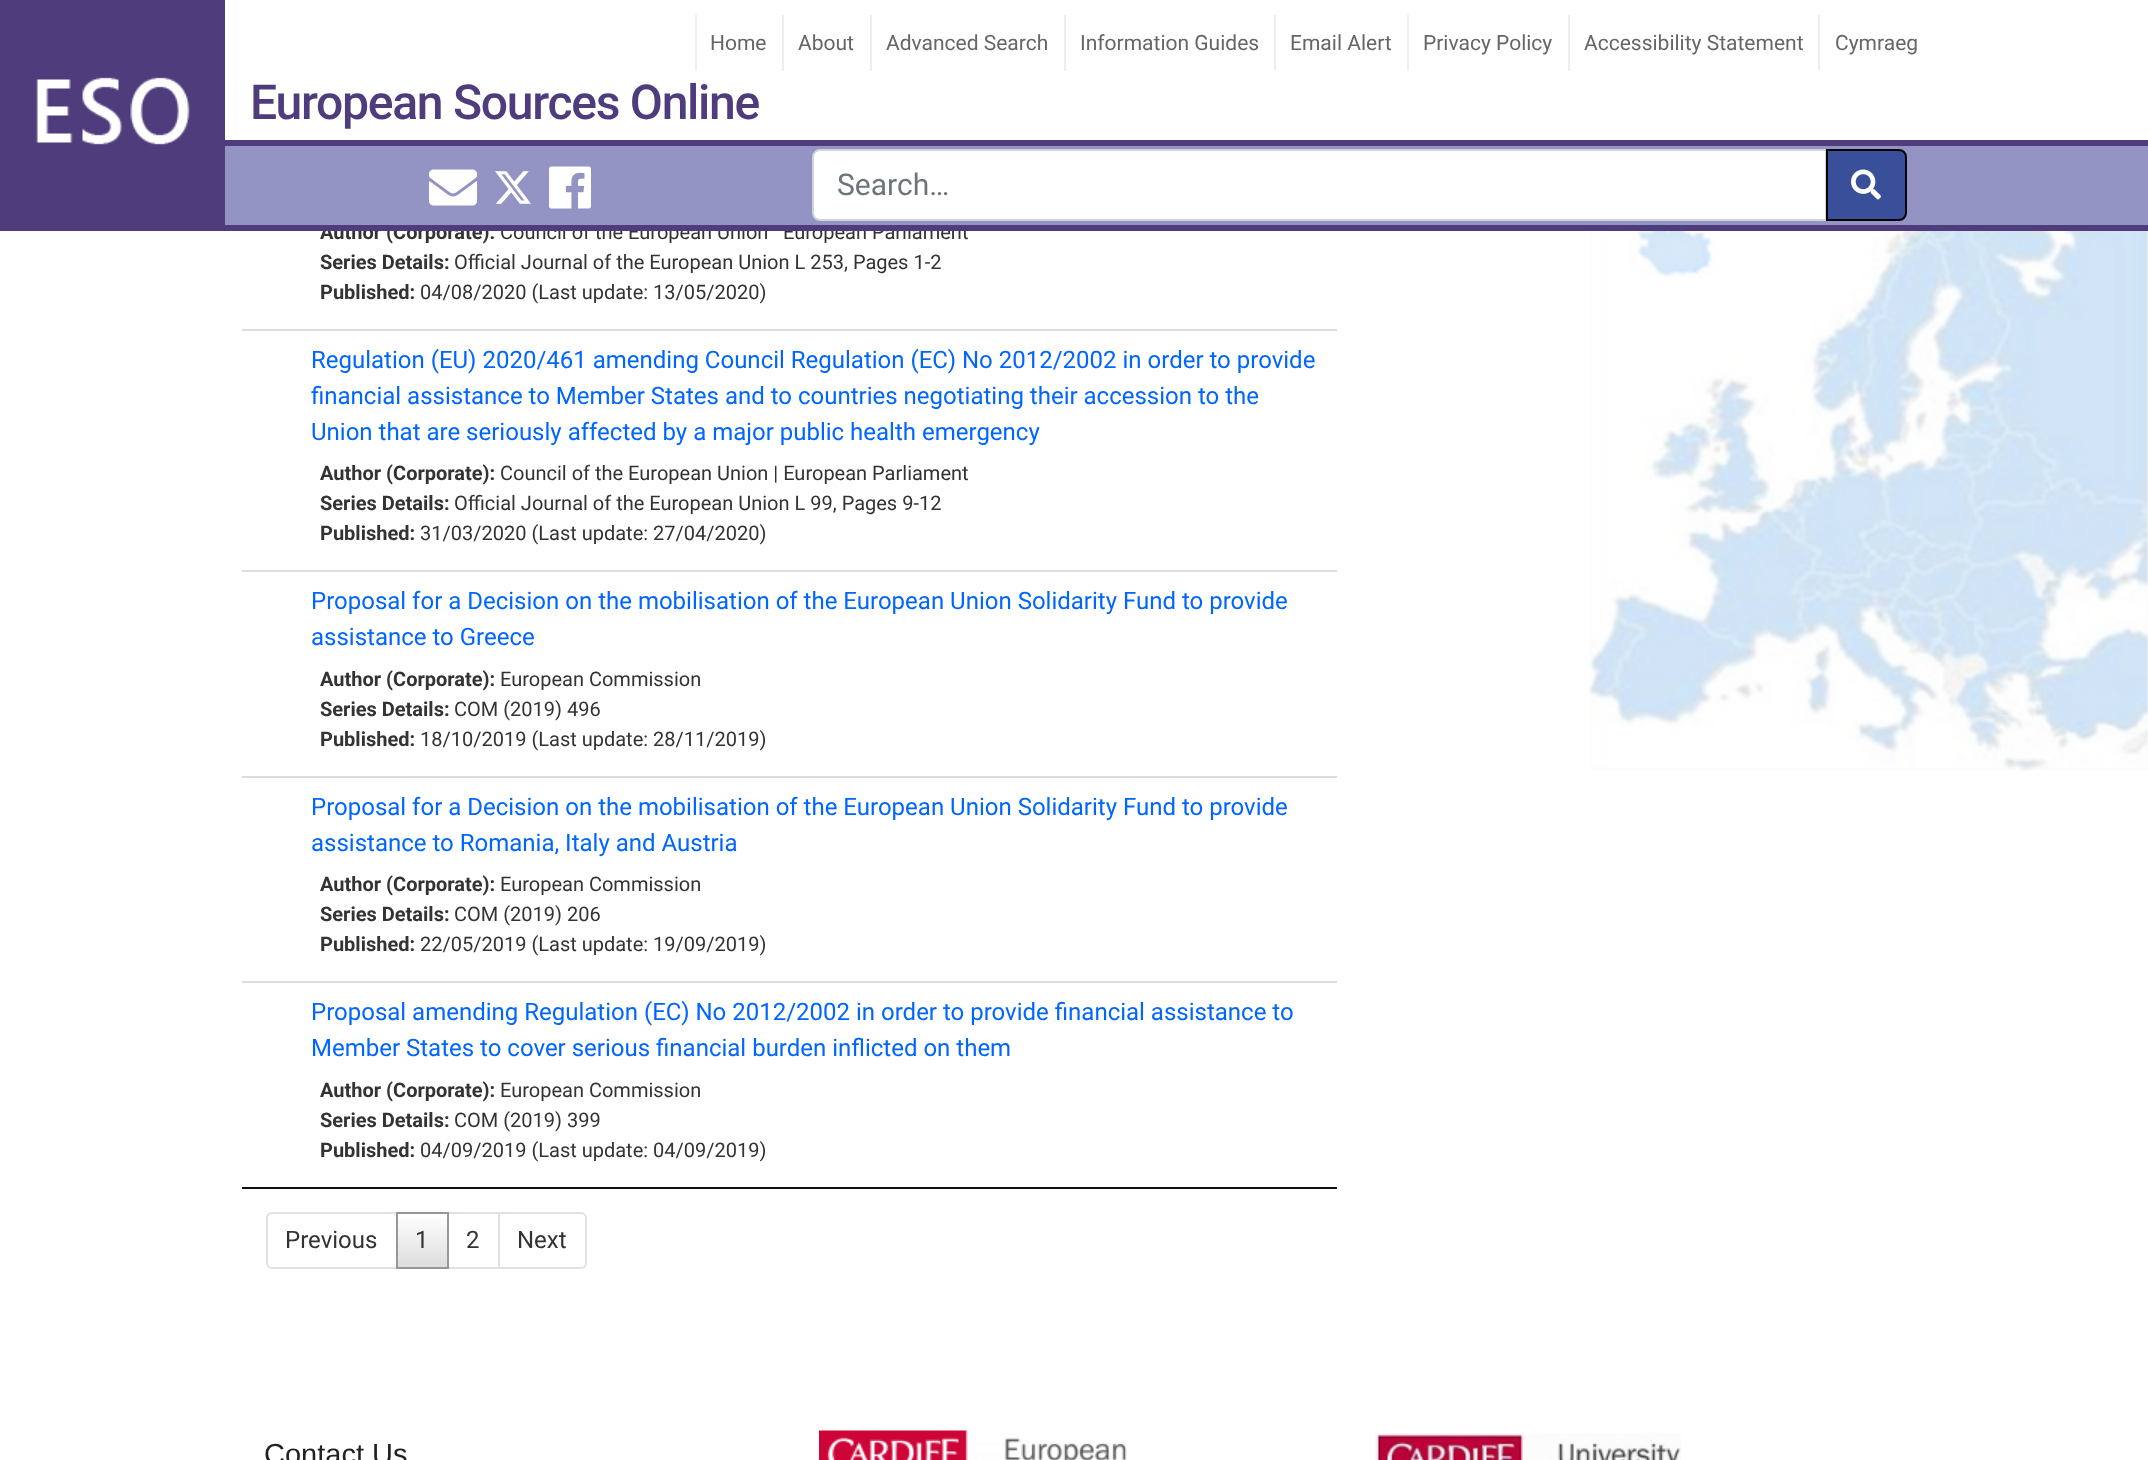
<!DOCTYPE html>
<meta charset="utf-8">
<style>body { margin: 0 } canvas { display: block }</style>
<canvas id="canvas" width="2148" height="1460"></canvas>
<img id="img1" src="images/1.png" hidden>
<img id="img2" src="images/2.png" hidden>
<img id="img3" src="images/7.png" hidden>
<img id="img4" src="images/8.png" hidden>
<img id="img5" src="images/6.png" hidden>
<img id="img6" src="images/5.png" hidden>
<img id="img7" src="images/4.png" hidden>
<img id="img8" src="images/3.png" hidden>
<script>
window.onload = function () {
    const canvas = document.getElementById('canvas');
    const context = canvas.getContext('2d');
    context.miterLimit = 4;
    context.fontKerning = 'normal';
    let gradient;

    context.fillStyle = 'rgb(255, 255, 255)';
    context.fillRect(0, 0, 2148, 1460);
    context.drawImage(document.getElementById('img1'), 1589, 231, 559, 540);
    context.drawImage(document.getElementById('img2'), 0, 0, 225, 225);
    context.fillStyle = 'rgb(238, 238, 238)';
    context.fillRect(695, 15, 2, 56);
    context.fillRect(782, 15, 2, 56);
    context.fillRect(870, 15, 2, 56);
    context.fillRect(1064, 15, 2, 56);
    context.fillRect(1274, 15, 2, 56);
    context.fillRect(1407, 15, 2, 56);
    context.fillRect(1568, 15, 2, 56);
    context.fillRect(1818, 15, 2, 56);
    context.fillStyle = 'rgb(78, 60, 124)';
    context.fillRect(225, 140, 1923, 6);
    context.fillStyle = 'rgb(17, 17, 17)';
    context.fillRect(242, 1187, 1095, 2);
    context.fillStyle = 'rgb(221, 221, 221)';
    context.fillRect(242, 329, 1095, 2);
    context.fillRect(242, 570, 1095, 2);
    context.fillRect(242, 776, 1095, 2);
    context.fillRect(242, 981, 1095, 2);
    context.beginPath();
    context.roundRect(267, 1213, 130, 55, [5, 0, 0, 5]);
    context.strokeStyle = 'rgb(222, 226, 230)';
    context.lineWidth = 2;
    context.stroke();
    gradient = context.createLinearGradient(422, 1214, 422, 1268);
    gradient.addColorStop(0, 'rgb(255, 255, 255)');
    gradient.addColorStop(1, 'rgb(220, 220, 220)');
    context.fillStyle = gradient;
    context.fillRect(398, 1218, 49, 49);
    context.strokeRect(448, 1213, 51, 55);
    context.strokeStyle = 'rgb(151, 151, 151)';
    context.strokeRect(397, 1213, 51, 55);
    context.fillStyle = 'rgb(255, 255, 255)';
    context.beginPath();
    context.roundRect(499, 1213, 87, 55, [0, 5, 5, 0]);
    context.fill();
    context.strokeStyle = 'rgb(222, 226, 230)';
    context.stroke();
    context.drawImage(document.getElementById('img3'), 819, 1430, 308, 30);
    context.drawImage(document.getElementById('img4'), 1375, 1433, 306, 27);
    context.font = '21px Roboto';
    context.fillStyle = 'rgb(102, 102, 102)';
    context.fillText('Home', 710, 50);
    context.fillText('About', 798, 50);
    context.fillText('Advanced Search', 886, 50);
    context.fillText('Information Guides', 1080, 50);
    context.fillText('Email Alert', 1290, 50);
    context.fillText('Privacy Policy', 1423, 50);
    context.fillText('Accessibility Statement', 1584, 50);
    context.fillText('Cymraeg', 1835, 50);
    context.letterSpacing = '-1.3px';
    context.font = '500 48.1px Roboto';
    context.fillStyle = 'rgb(78, 60, 124)';
    context.fillText('European Sources Online', 250, 119);
    context.letterSpacing = '0px';
    context.font = 'bold 20px Roboto';
    context.fillStyle = 'rgb(51, 51, 51)';
    context.fillText('Author (Corporate):', 320, 239);
    context.font = '20px Roboto';
    context.fillText('Council of the European Union', 500, 239);
    context.fillText('European Parliament', 783, 239);
    context.fillStyle = 'rgb(147, 148, 196)';
    context.fillRect(225, 146, 1923, 79);
    context.fillStyle = 'rgb(255, 255, 255)';
    context.beginPath();
    context.roundRect(813, 150, 1013, 70, [7, 0, 0, 7]);
    context.fill();
    context.strokeStyle = 'rgb(206, 212, 218)';
    context.stroke();
    context.fillStyle = 'rgb(57, 79, 154)';
    context.beginPath();
    context.roundRect(1827, 150, 79, 70, [0, 7, 7, 0]);
    context.fill();
    context.strokeStyle = 'rgb(3, 3, 3)';
    context.stroke();
    context.drawImage(document.getElementById('img5'), 1851, 169, 30, 31);
    context.font = '30px Roboto';
    context.fillStyle = 'rgb(108, 117, 125)';
    context.fillText('Search…', 837, 195);
    context.drawImage(document.getElementById('img6'), 549, 166, 42, 43);
    context.drawImage(document.getElementById('img7'), 495, 171, 36, 33);
    context.drawImage(document.getElementById('img8'), 429, 169, 48, 37);
    context.fillStyle = 'rgb(78, 60, 124)';
    context.fillRect(0, 225, 2148, 6);
    context.font = 'bold 20px Roboto';
    context.fillStyle = 'rgb(51, 51, 51)';
    context.fillText('Series Details:', 320, 269);
    context.font = '20px Roboto';
    context.fillText('Official Journal of the European Union L 253, Pages 1-2', 454, 269);
    context.font = 'bold 20px Roboto';
    context.fillText('Published:', 320, 299);
    context.font = '20px Roboto';
    context.fillText('04/08/2020 (Last update: 13/05/2020)', 420, 299);
    context.font = '24px Roboto';
    context.fillStyle = 'rgb(0, 102, 255)';
    context.fillText('Regulation (EU) 2020/461 amending Council Regulation (EC) No 2012/2002 in order to provide', 311, 368);
    context.fillText('financial assistance to Member States and to countries negotiating their accession to the', 311, 404);
    context.fillText('Union that are seriously affected by a major public health emergency', 311, 440);
    context.font = 'bold 20px Roboto';
    context.fillStyle = 'rgb(51, 51, 51)';
    context.fillText('Author (Corporate):', 320, 480);
    context.font = '20px Roboto';
    context.fillText('Council of the European Union | European Parliament', 500, 480);
    context.font = 'bold 20px Roboto';
    context.fillText('Series Details:', 320, 510);
    context.font = '20px Roboto';
    context.fillText('Official Journal of the European Union L 99, Pages 9-12', 454, 510);
    context.font = 'bold 20px Roboto';
    context.fillText('Published:', 320, 540);
    context.font = '20px Roboto';
    context.fillText('31/03/2020 (Last update: 27/04/2020)', 420, 540);
    context.font = '24px Roboto';
    context.fillStyle = 'rgb(0, 102, 255)';
    context.fillText('Proposal for a Decision on the mobilisation of the European Union Solidarity Fund to provide', 311, 609);
    context.fillText('assistance to Greece', 311, 645);
    context.font = 'bold 20px Roboto';
    context.fillStyle = 'rgb(51, 51, 51)';
    context.fillText('Author (Corporate):', 320, 686);
    context.font = '20px Roboto';
    context.fillText('European Commission', 500, 686);
    context.font = 'bold 20px Roboto';
    context.fillText('Series Details:', 320, 716);
    context.font = '20px Roboto';
    context.fillText('COM (2019) 496', 454, 716);
    context.font = 'bold 20px Roboto';
    context.fillText('Published:', 320, 746);
    context.font = '20px Roboto';
    context.fillText('18/10/2019 (Last update: 28/11/2019)', 420, 746);
    context.font = '24px Roboto';
    context.fillStyle = 'rgb(0, 102, 255)';
    context.fillText('Proposal for a Decision on the mobilisation of the European Union Solidarity Fund to provide', 311, 815);
    context.fillText('assistance to Romania, Italy and Austria', 311, 851);
    context.font = 'bold 20px Roboto';
    context.fillStyle = 'rgb(51, 51, 51)';
    context.fillText('Author (Corporate):', 320, 891);
    context.font = '20px Roboto';
    context.fillText('European Commission', 500, 891);
    context.font = 'bold 20px Roboto';
    context.fillText('Series Details:', 320, 921);
    context.font = '20px Roboto';
    context.fillText('COM (2019) 206', 454, 921);
    context.font = 'bold 20px Roboto';
    context.fillText('Published:', 320, 951);
    context.font = '20px Roboto';
    context.fillText('22/05/2019 (Last update: 19/09/2019)', 420, 951);
    context.font = '24px Roboto';
    context.fillStyle = 'rgb(0, 102, 255)';
    context.fillText('Proposal amending Regulation (EC) No 2012/2002 in order to provide financial assistance to', 311, 1020);
    context.fillText('Member States to cover serious financial burden inflicted on them', 311, 1056);
    context.font = 'bold 20px Roboto';
    context.fillStyle = 'rgb(51, 51, 51)';
    context.fillText('Author (Corporate):', 320, 1097);
    context.font = '20px Roboto';
    context.fillText('European Commission', 500, 1097);
    context.font = 'bold 20px Roboto';
    context.fillText('Series Details:', 320, 1127);
    context.font = '20px Roboto';
    context.fillText('COM (2019) 399', 454, 1127);
    context.font = 'bold 20px Roboto';
    context.fillText('Published:', 320, 1157);
    context.font = '20px Roboto';
    context.fillText('04/09/2019 (Last update: 04/09/2019)', 420, 1157);
    context.font = '24px Roboto';
    context.fillText('Previous', 285, 1248);
    context.fillText('1', 415, 1248);
    context.fillText('2', 466, 1248);
    context.fillText('Next', 517, 1248);
    context.font = '29px Liberation Sans';
    context.fillStyle = 'rgb(34, 34, 34)';
    context.fillText('Contact Us', 264, 1464);
};
</script>
